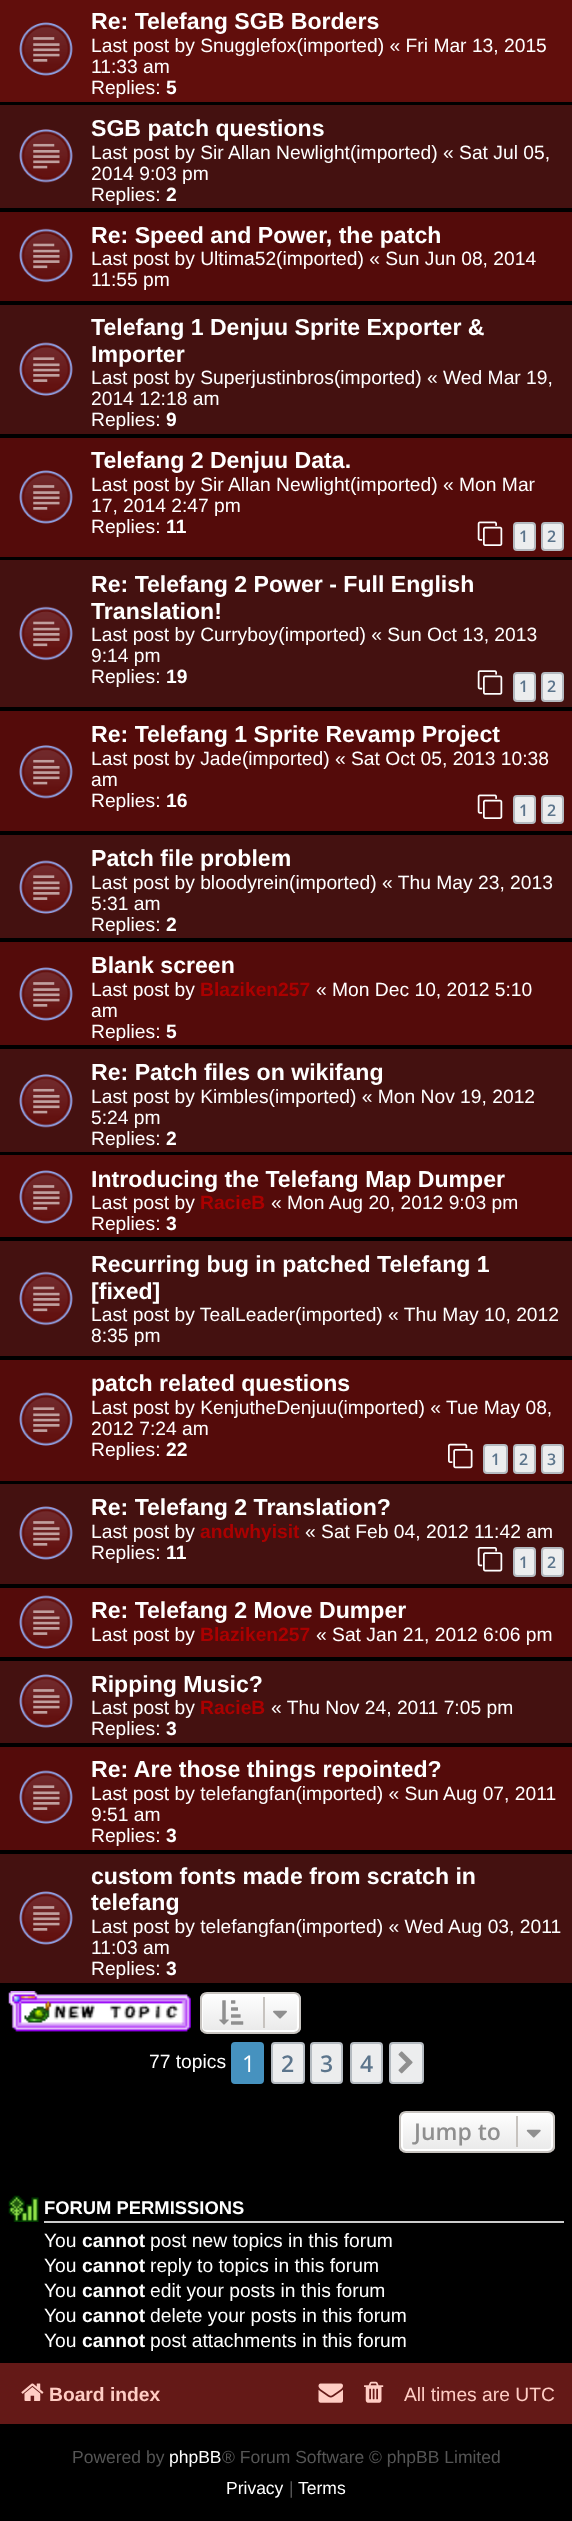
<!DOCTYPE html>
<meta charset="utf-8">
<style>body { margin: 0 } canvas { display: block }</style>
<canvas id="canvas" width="572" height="2521"></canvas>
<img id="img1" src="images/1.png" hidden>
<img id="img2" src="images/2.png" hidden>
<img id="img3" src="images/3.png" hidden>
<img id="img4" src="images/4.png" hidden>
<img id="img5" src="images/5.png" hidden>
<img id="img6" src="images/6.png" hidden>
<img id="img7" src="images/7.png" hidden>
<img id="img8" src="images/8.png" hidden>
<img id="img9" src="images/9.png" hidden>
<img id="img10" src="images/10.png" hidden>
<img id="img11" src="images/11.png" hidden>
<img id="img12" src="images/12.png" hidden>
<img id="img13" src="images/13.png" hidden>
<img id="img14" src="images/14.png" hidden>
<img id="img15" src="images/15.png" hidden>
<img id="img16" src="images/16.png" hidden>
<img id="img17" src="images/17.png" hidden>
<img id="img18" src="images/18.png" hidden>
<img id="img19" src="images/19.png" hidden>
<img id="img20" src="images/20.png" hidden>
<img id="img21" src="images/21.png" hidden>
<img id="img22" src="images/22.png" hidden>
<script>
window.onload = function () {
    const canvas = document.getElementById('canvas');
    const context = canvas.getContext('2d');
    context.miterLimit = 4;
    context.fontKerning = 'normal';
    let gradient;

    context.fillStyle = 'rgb(0, 0, 0)';
    context.fillRect(0, 0, 572, 2521);
    context.fillStyle = 'rgb(97, 14, 12)';
    context.fillRect(0, 0, 572, 102);
    context.drawImage(document.getElementById('img1'), 19, 22, 54, 54);
    context.fillStyle = 'rgb(68, 17, 16)';
    context.fillRect(0, 105, 572, 103);
    context.drawImage(document.getElementById('img2'), 19, 129, 54, 54);
    context.fillStyle = 'rgb(84, 11, 10)';
    context.fillRect(0, 212, 572, 89);
    context.drawImage(document.getElementById('img3'), 19, 228, 54, 55);
    context.fillStyle = 'rgb(68, 17, 16)';
    context.fillRect(0, 305, 572, 129);
    context.drawImage(document.getElementById('img4'), 19, 342, 54, 54);
    context.fillStyle = 'rgb(84, 11, 10)';
    context.fillRect(0, 438, 572, 119);
    context.drawImage(document.getElementById('img5'), 19, 470, 54, 54);
    context.drawImage(document.getElementById('img6'), 477, 521, 26, 25);
    context.fillStyle = 'rgb(236, 237, 238)';
    context.beginPath();
    context.roundRect(514, 523, 21, 27, 3);
    context.fill();
    context.strokeStyle = 'rgb(180, 186, 192)';
    context.lineWidth = 2;
    context.stroke();
    context.beginPath();
    context.roundRect(542, 523, 21, 27, 3);
    context.fill();
    context.stroke();
    context.fillStyle = 'rgb(68, 17, 16)';
    context.fillRect(0, 560, 572, 147);
    context.drawImage(document.getElementById('img7'), 19, 606, 54, 55);
    context.drawImage(document.getElementById('img8'), 477, 670, 26, 25);
    context.fillStyle = 'rgb(236, 237, 238)';
    context.beginPath();
    context.roundRect(514, 673, 21, 28, 3);
    context.fill();
    context.stroke();
    context.beginPath();
    context.roundRect(542, 673, 21, 28, 3);
    context.fill();
    context.stroke();
    context.fillStyle = 'rgb(84, 11, 10)';
    context.fillRect(0, 711, 572, 120);
    context.drawImage(document.getElementById('img9'), 19, 745, 54, 54);
    context.drawImage(document.getElementById('img6'), 477, 794, 26, 25);
    context.fillStyle = 'rgb(236, 237, 238)';
    context.beginPath();
    context.roundRect(514, 796, 21, 27, 3);
    context.fill();
    context.stroke();
    context.beginPath();
    context.roundRect(542, 796, 21, 27, 3);
    context.fill();
    context.stroke();
    context.fillStyle = 'rgb(68, 17, 16)';
    context.fillRect(0, 835, 572, 103);
    context.drawImage(document.getElementById('img4'), 19, 860, 54, 54);
    context.fillStyle = 'rgb(84, 11, 10)';
    context.fillRect(0, 942, 572, 103);
    context.drawImage(document.getElementById('img5'), 19, 967, 54, 54);
    context.fillStyle = 'rgb(68, 17, 16)';
    context.fillRect(0, 1049, 572, 103);
    context.drawImage(document.getElementById('img2'), 19, 1074, 54, 54);
    context.fillStyle = 'rgb(84, 11, 10)';
    context.fillRect(0, 1155, 572, 82);
    context.drawImage(document.getElementById('img5'), 19, 1170, 54, 54);
    context.fillStyle = 'rgb(68, 17, 16)';
    context.fillRect(0, 1241, 572, 115);
    context.drawImage(document.getElementById('img7'), 19, 1271, 54, 55);
    context.fillStyle = 'rgb(84, 11, 10)';
    context.fillRect(0, 1360, 572, 121);
    context.drawImage(document.getElementById('img10'), 19, 1392, 54, 54);
    context.drawImage(document.getElementById('img11'), 448, 1443, 25, 26);
    context.fillStyle = 'rgb(236, 237, 238)';
    context.beginPath();
    context.roundRect(484, 1445, 23, 28, 3);
    context.fill();
    context.stroke();
    context.beginPath();
    context.roundRect(514, 1445, 21, 28, 3);
    context.fill();
    context.stroke();
    context.beginPath();
    context.roundRect(542, 1445, 21, 28, 3);
    context.fill();
    context.stroke();
    context.fillStyle = 'rgb(68, 17, 16)';
    context.fillRect(0, 1484, 572, 100);
    context.drawImage(document.getElementById('img12'), 19, 1506, 54, 54);
    context.drawImage(document.getElementById('img13'), 477, 1547, 26, 25);
    context.fillStyle = 'rgb(236, 237, 238)';
    context.beginPath();
    context.roundRect(514, 1548, 21, 28, 3);
    context.fill();
    context.stroke();
    context.beginPath();
    context.roundRect(542, 1548, 21, 28, 3);
    context.fill();
    context.stroke();
    context.fillStyle = 'rgb(84, 11, 10)';
    context.fillRect(0, 1588, 572, 69);
    context.drawImage(document.getElementById('img10'), 19, 1595, 54, 54);
    context.fillStyle = 'rgb(68, 17, 16)';
    context.fillRect(0, 1661, 572, 82);
    context.drawImage(document.getElementById('img12'), 19, 1674, 54, 54);
    context.fillStyle = 'rgb(84, 11, 10)';
    context.fillRect(0, 1747, 572, 103);
    context.drawImage(document.getElementById('img10'), 19, 1770, 54, 54);
    context.fillStyle = 'rgb(68, 17, 16)';
    context.fillRect(0, 1854, 572, 129);
    context.drawImage(document.getElementById('img12'), 19, 1891, 54, 54);
    context.drawImage(document.getElementById('img14'), 8, 1991, 183, 41);
    context.save();
    context.beginPath();
    context.roundRect(200, 1992, 101, 42, 7);
    context.clip();
    gradient = context.createLinearGradient(250, 1993, 250, 2032);
    gradient.addColorStop(0, 'rgb(255, 255, 255)');
    gradient.addColorStop(1, 'rgb(233, 233, 233)');
    context.fillStyle = gradient;
    context.fillRect(200, 1993, 101, 39);
    context.restore();
    context.beginPath();
    context.roundRect(202, 1994, 96, 37, 4);
    context.strokeStyle = 'rgb(255, 255, 255)';
    context.stroke();
    context.beginPath();
    context.roundRect(201, 1993, 99, 40, 6);
    context.strokeStyle = 'rgb(199, 195, 191)';
    context.stroke();
    context.drawImage(document.getElementById('img15'), 219, 2000, 25, 25);
    context.fillStyle = 'rgb(199, 195, 191)';
    context.fillRect(263, 1997, 2, 31);
    context.drawImage(document.getElementById('img16'), 273, 2010, 14, 9);
    context.fillStyle = 'rgb(70, 146, 191)';
    context.beginPath();
    context.roundRect(232, 2043, 31, 40, 3);
    context.fill();
    context.strokeStyle = 'rgb(70, 146, 191)';
    context.stroke();
    context.fillStyle = 'rgb(236, 237, 238)';
    context.beginPath();
    context.roundRect(272, 2043, 32, 40, 3);
    context.fill();
    context.strokeStyle = 'rgb(180, 186, 192)';
    context.stroke();
    context.beginPath();
    context.roundRect(311, 2043, 31, 40, 3);
    context.fill();
    context.stroke();
    context.beginPath();
    context.roundRect(351, 2043, 31, 40, 3);
    context.fill();
    context.stroke();
    context.beginPath();
    context.roundRect(390, 2043, 33, 40, 3);
    context.fill();
    context.stroke();
    context.drawImage(document.getElementById('img17'), 398, 2051, 15, 23);
    context.save();
    context.beginPath();
    context.roundRect(399, 2111, 156, 42, 7);
    context.clip();
    gradient = context.createLinearGradient(477, 2112, 477, 2151);
    gradient.addColorStop(0, 'rgb(255, 255, 255)');
    gradient.addColorStop(1, 'rgb(233, 233, 233)');
    context.fillStyle = gradient;
    context.fillRect(399, 2112, 156, 39);
    context.restore();
    context.beginPath();
    context.roundRect(402, 2113, 150, 37, 4);
    context.strokeStyle = 'rgb(255, 255, 255)';
    context.stroke();
    context.beginPath();
    context.roundRect(400, 2112, 154, 40, 6);
    context.strokeStyle = 'rgb(199, 195, 191)';
    context.stroke();
    context.fillStyle = 'rgb(199, 195, 191)';
    context.fillRect(516, 2116, 2, 31);
    context.drawImage(document.getElementById('img18'), 526, 2129, 15, 9);
    context.drawImage(document.getElementById('img19'), 8, 2195, 31, 27);
    context.fillStyle = 'rgb(204, 204, 204)';
    context.fillRect(44, 2221, 520, 2);
    context.fillStyle = 'rgb(100, 25, 23)';
    context.fillRect(0, 2363, 572, 61);
    context.drawImage(document.getElementById('img20'), 21, 2383, 23, 18);
    context.drawImage(document.getElementById('img21'), 318, 2383, 25, 20);
    context.drawImage(document.getElementById('img22'), 364, 2381, 20, 22);
    context.font = 'bold 23.1px Liberation Sans';
    context.fillStyle = 'rgb(255, 255, 255)';
    context.fillText('Re: Telefang SGB Borders', 91, 29);
    context.font = '19.25px Liberation Sans';
    context.fillText('Last post by Snugglefox(imported) « Fri Mar 13, 2015', 91, 52);
    context.fillText('11:33 am', 91, 73);
    context.fillText('Replies:', 91, 94);
    context.font = 'bold 19.25px Liberation Sans';
    context.fillText('5', 166, 94);
    context.font = 'bold 23.1px Liberation Sans';
    context.fillText('SGB patch questions', 91, 136);
    context.font = '19.25px Liberation Sans';
    context.fillText('Last post by Sir Allan Newlight(imported) « Sat Jul 05,', 91, 159);
    context.fillText('2014 9:03 pm', 91, 180);
    context.fillText('Replies:', 91, 201);
    context.font = 'bold 19.25px Liberation Sans';
    context.fillText('2', 166, 201);
    context.font = 'bold 23.1px Liberation Sans';
    context.fillText('Re: Speed and Power, the patch', 91, 243);
    context.font = '19.25px Liberation Sans';
    context.fillText('Last post by Ultima52(imported) « Sun Jun 08, 2014', 91, 265);
    context.fillText('11:55 pm', 91, 286);
    context.font = 'bold 23.1px Liberation Sans';
    context.fillText('Telefang 1 Denjuu Sprite Exporter &', 91, 335);
    context.fillText('Importer', 91, 362);
    context.font = '19.25px Liberation Sans';
    context.fillText('Last post by Superjustinbros(imported) « Wed Mar 19,', 91, 384);
    context.fillText('2014 12:18 am', 91, 405);
    context.fillText('Replies:', 91, 426);
    context.font = 'bold 19.25px Liberation Sans';
    context.fillText('9', 166, 426);
    context.font = 'bold 23.1px Liberation Sans';
    context.fillText('Telefang 2 Denjuu Data.', 91, 468);
    context.font = '19.25px Liberation Sans';
    context.fillText('Last post by Sir Allan Newlight(imported) « Mon Mar', 91, 491);
    context.fillText('17, 2014 2:47 pm', 91, 512);
    context.fillText('Replies:', 91, 533);
    context.font = 'bold 19.25px Liberation Sans';
    context.fillText('11', 166, 533);
    context.font = '600 16px Open Sans';
    context.fillStyle = 'rgb(92, 117, 140)';
    context.fillText('1', 519, 542);
    context.fillText('2', 547, 542);
    context.font = 'bold 23.1px Liberation Sans';
    context.fillStyle = 'rgb(255, 255, 255)';
    context.fillText('Re: Telefang 2 Power - Full English', 91, 592);
    context.fillText('Translation!', 91, 619);
    context.font = '19.25px Liberation Sans';
    context.fillText('Last post by Curryboy(imported) « Sun Oct 13, 2013', 91, 641);
    context.fillText('9:14 pm', 91, 662);
    context.fillText('Replies:', 91, 683);
    context.font = 'bold 19.25px Liberation Sans';
    context.fillText('19', 166, 683);
    context.font = '600 16px Open Sans';
    context.fillStyle = 'rgb(92, 117, 140)';
    context.fillText('1', 519, 692);
    context.fillText('2', 547, 692);
    context.font = 'bold 23.1px Liberation Sans';
    context.fillStyle = 'rgb(255, 255, 255)';
    context.fillText('Re: Telefang 1 Sprite Revamp Project', 91, 742);
    context.font = '19.25px Liberation Sans';
    context.fillText('Last post by Jade(imported) « Sat Oct 05, 2013 10:38', 91, 765);
    context.fillText('am', 91, 786);
    context.fillText('Replies:', 91, 807);
    context.font = 'bold 19.25px Liberation Sans';
    context.fillText('16', 166, 807);
    context.font = '600 16px Open Sans';
    context.fillStyle = 'rgb(92, 117, 140)';
    context.fillText('1', 519, 816);
    context.fillText('2', 547, 816);
    context.font = 'bold 23.1px Liberation Sans';
    context.fillStyle = 'rgb(255, 255, 255)';
    context.fillText('Patch file problem', 91, 866);
    context.font = '19.25px Liberation Sans';
    context.fillText('Last post by bloodyrein(imported) « Thu May 23, 2013', 91, 889);
    context.fillText('5:31 am', 91, 910);
    context.fillText('Replies:', 91, 931);
    context.font = 'bold 19.25px Liberation Sans';
    context.fillText('2', 166, 931);
    context.font = 'bold 23.1px Liberation Sans';
    context.fillText('Blank screen', 91, 973);
    context.font = '19.25px Liberation Sans';
    context.fillText('Last post by', 91, 996);
    context.font = 'bold 19.25px Liberation Sans';
    context.fillStyle = 'rgb(170, 0, 0)';
    context.fillText('Blaziken257', 200, 996);
    context.font = '19.25px Liberation Sans';
    context.fillStyle = 'rgb(255, 255, 255)';
    context.fillText('« Mon Dec 10, 2012 5:10', 316, 996);
    context.fillText('am', 91, 1017);
    context.save();
    context.beginPath();
    context.rect(0, 945, 572, 96);
    context.clip();
    context.fillText('Replies:', 91, 1038);
    context.restore();
    context.font = 'bold 19.25px Liberation Sans';
    context.fillText('5', 166, 1038);
    context.font = 'bold 23.1px Liberation Sans';
    context.fillText('Re: Patch files on wikifang', 91, 1080);
    context.font = '19.25px Liberation Sans';
    context.fillText('Last post by Kimbles(imported) « Mon Nov 19, 2012', 91, 1103);
    context.fillText('5:24 pm', 91, 1124);
    context.save();
    context.beginPath();
    context.rect(0, 1052, 572, 96);
    context.clip();
    context.fillText('Replies:', 91, 1145);
    context.restore();
    context.font = 'bold 19.25px Liberation Sans';
    context.fillText('2', 166, 1145);
    context.font = 'bold 23.1px Liberation Sans';
    context.fillText('Introducing the Telefang Map Dumper', 91, 1187);
    context.font = '19.25px Liberation Sans';
    context.fillText('Last post by', 91, 1209);
    context.font = 'bold 19.25px Liberation Sans';
    context.fillStyle = 'rgb(170, 0, 0)';
    context.fillText('RacieB', 200, 1209);
    context.font = '19.25px Liberation Sans';
    context.fillStyle = 'rgb(255, 255, 255)';
    context.fillText('« Mon Aug 20, 2012 9:03 pm', 271, 1209);
    context.fillText('Replies:', 91, 1230);
    context.font = 'bold 19.25px Liberation Sans';
    context.fillText('3', 166, 1230);
    context.font = 'bold 23.1px Liberation Sans';
    context.fillText('Recurring bug in patched Telefang 1', 91, 1272);
    context.fillText('[fixed]', 91, 1299);
    context.font = '19.25px Liberation Sans';
    context.fillText('Last post by TealLeader(imported) « Thu May 10, 2012', 91, 1321);
    context.fillText('8:35 pm', 91, 1342);
    context.font = 'bold 23.1px Liberation Sans';
    context.fillText('patch related questions', 91, 1391);
    context.font = '19.25px Liberation Sans';
    context.fillText('Last post by KenjutheDenjuu(imported) « Tue May 08,', 91, 1414);
    context.fillText('2012 7:24 am', 91, 1435);
    context.fillText('Replies:', 91, 1456);
    context.font = 'bold 19.25px Liberation Sans';
    context.fillText('22', 166, 1456);
    context.font = '600 16px Open Sans';
    context.fillStyle = 'rgb(92, 117, 140)';
    context.fillText('1', 491, 1465);
    context.fillText('2', 519, 1465);
    context.fillText('3', 547, 1465);
    context.font = 'bold 23.1px Liberation Sans';
    context.fillStyle = 'rgb(255, 255, 255)';
    context.fillText('Re: Telefang 2 Translation?', 91, 1515);
    context.font = '19.25px Liberation Sans';
    context.fillText('Last post by', 91, 1538);
    context.font = 'bold 19.25px Liberation Sans';
    context.fillStyle = 'rgb(170, 0, 0)';
    context.fillText('andwhyisit', 200, 1538);
    context.font = '19.25px Liberation Sans';
    context.fillStyle = 'rgb(255, 255, 255)';
    context.fillText('« Sat Feb 04, 2012 11:42 am', 305, 1538);
    context.fillText('Replies:', 91, 1559);
    context.font = 'bold 19.25px Liberation Sans';
    context.fillText('11', 166, 1559);
    context.font = '600 16px Open Sans';
    context.fillStyle = 'rgb(92, 117, 140)';
    context.fillText('1', 519, 1568);
    context.fillText('2', 547, 1568);
    context.font = 'bold 23.1px Liberation Sans';
    context.fillStyle = 'rgb(255, 255, 255)';
    context.fillText('Re: Telefang 2 Move Dumper', 91, 1618);
    context.font = '19.25px Liberation Sans';
    context.fillText('Last post by', 91, 1641);
    context.font = 'bold 19.25px Liberation Sans';
    context.fillStyle = 'rgb(170, 0, 0)';
    context.fillText('Blaziken257', 200, 1641);
    context.font = '19.25px Liberation Sans';
    context.fillStyle = 'rgb(255, 255, 255)';
    context.fillText('« Sat Jan 21, 2012 6:06 pm', 316, 1641);
    context.font = 'bold 23.1px Liberation Sans';
    context.fillText('Ripping Music?', 91, 1692);
    context.font = '19.25px Liberation Sans';
    context.fillText('Last post by', 91, 1714);
    context.font = 'bold 19.25px Liberation Sans';
    context.fillStyle = 'rgb(170, 0, 0)';
    context.fillText('RacieB', 200, 1714);
    context.font = '19.25px Liberation Sans';
    context.fillStyle = 'rgb(255, 255, 255)';
    context.fillText('« Thu Nov 24, 2011 7:05 pm', 271, 1714);
    context.fillText('Replies:', 91, 1735);
    context.font = 'bold 19.25px Liberation Sans';
    context.fillText('3', 166, 1735);
    context.font = 'bold 23.1px Liberation Sans';
    context.fillText('Re: Are those things repointed?', 91, 1777);
    context.font = '19.25px Liberation Sans';
    context.fillText('Last post by telefangfan(imported) « Sun Aug 07, 2011', 91, 1800);
    context.fillText('9:51 am', 91, 1821);
    context.fillText('Replies:', 91, 1842);
    context.font = 'bold 19.25px Liberation Sans';
    context.fillText('3', 166, 1842);
    context.font = 'bold 23.1px Liberation Sans';
    context.fillText('custom fonts made from scratch in', 91, 1884);
    context.fillText('telefang', 91, 1910);
    context.font = '19.25px Liberation Sans';
    context.fillText('Last post by telefangfan(imported) « Wed Aug 03, 2011', 91, 1933);
    context.fillText('11:03 am', 91, 1954);
    context.fillText('Replies:', 91, 1975);
    context.font = 'bold 19.25px Liberation Sans';
    context.fillText('3', 166, 1975);
    context.font = '19.25px Liberation Sans';
    context.fillText('77 topics', 149, 2068);
    context.font = '23px Open Sans';
    context.fillText('1', 242, 2072);
    context.font = '600 23px Open Sans';
    context.fillStyle = 'rgb(92, 117, 140)';
    context.fillText('2', 281, 2072);
    context.fillText('3', 320, 2072);
    context.fillText('4', 360, 2072);
    context.fillStyle = 'rgb(143, 143, 143)';
    context.fillText('Jump to', 414, 2140);
    context.font = 'bold 18.4px Liberation Sans';
    context.fillStyle = 'rgb(255, 255, 255)';
    context.fillText('FORUM PERMISSIONS', 44, 2214);
    context.font = '19.25px Liberation Sans';
    context.fillText('You', 44, 2247);
    context.font = 'bold 19.25px Liberation Sans';
    context.fillText('cannot', 82, 2247);
    context.font = '19.25px Liberation Sans';
    context.fillText('post new topics in this forum', 150, 2247);
    context.fillText('You', 44, 2272);
    context.font = 'bold 19.25px Liberation Sans';
    context.fillText('cannot', 82, 2272);
    context.font = '19.25px Liberation Sans';
    context.fillText('reply to topics in this forum', 150, 2272);
    context.fillText('You', 44, 2297);
    context.font = 'bold 19.25px Liberation Sans';
    context.fillText('cannot', 82, 2297);
    context.font = '19.25px Liberation Sans';
    context.fillText('edit your posts in this forum', 150, 2297);
    context.fillText('You', 44, 2322);
    context.font = 'bold 19.25px Liberation Sans';
    context.fillText('cannot', 82, 2322);
    context.font = '19.25px Liberation Sans';
    context.fillText('delete your posts in this forum', 150, 2322);
    context.fillText('You', 44, 2347);
    context.font = 'bold 19.25px Liberation Sans';
    context.fillText('cannot', 82, 2347);
    context.font = '19.25px Liberation Sans';
    context.fillText('post attachments in this forum', 150, 2347);
    context.font = 'bold 19.25px Liberation Sans';
    context.fillStyle = 'rgb(255, 205, 196)';
    context.fillText('Board index', 49, 2401);
    context.font = '19.25px Liberation Sans';
    context.fillText('All times are UTC', 404, 2401);
    context.font = '17.5px Liberation Sans';
    context.fillStyle = 'rgb(85, 85, 85)';
    context.fillText('Powered by', 72, 2463);
    context.fillStyle = 'rgb(255, 255, 255)';
    context.fillText('phpBB', 169, 2463);
    context.fillStyle = 'rgb(85, 85, 85)';
    context.fillText('® Forum Software © phpBB Limited', 222, 2463);
    context.fillStyle = 'rgb(255, 255, 255)';
    context.fillText('Privacy', 226, 2494);
    context.fillStyle = 'rgb(85, 85, 85)';
    context.fillText('|', 289, 2494);
    context.fillStyle = 'rgb(255, 255, 255)';
    context.fillText('Terms', 298, 2494);
};
</script>
